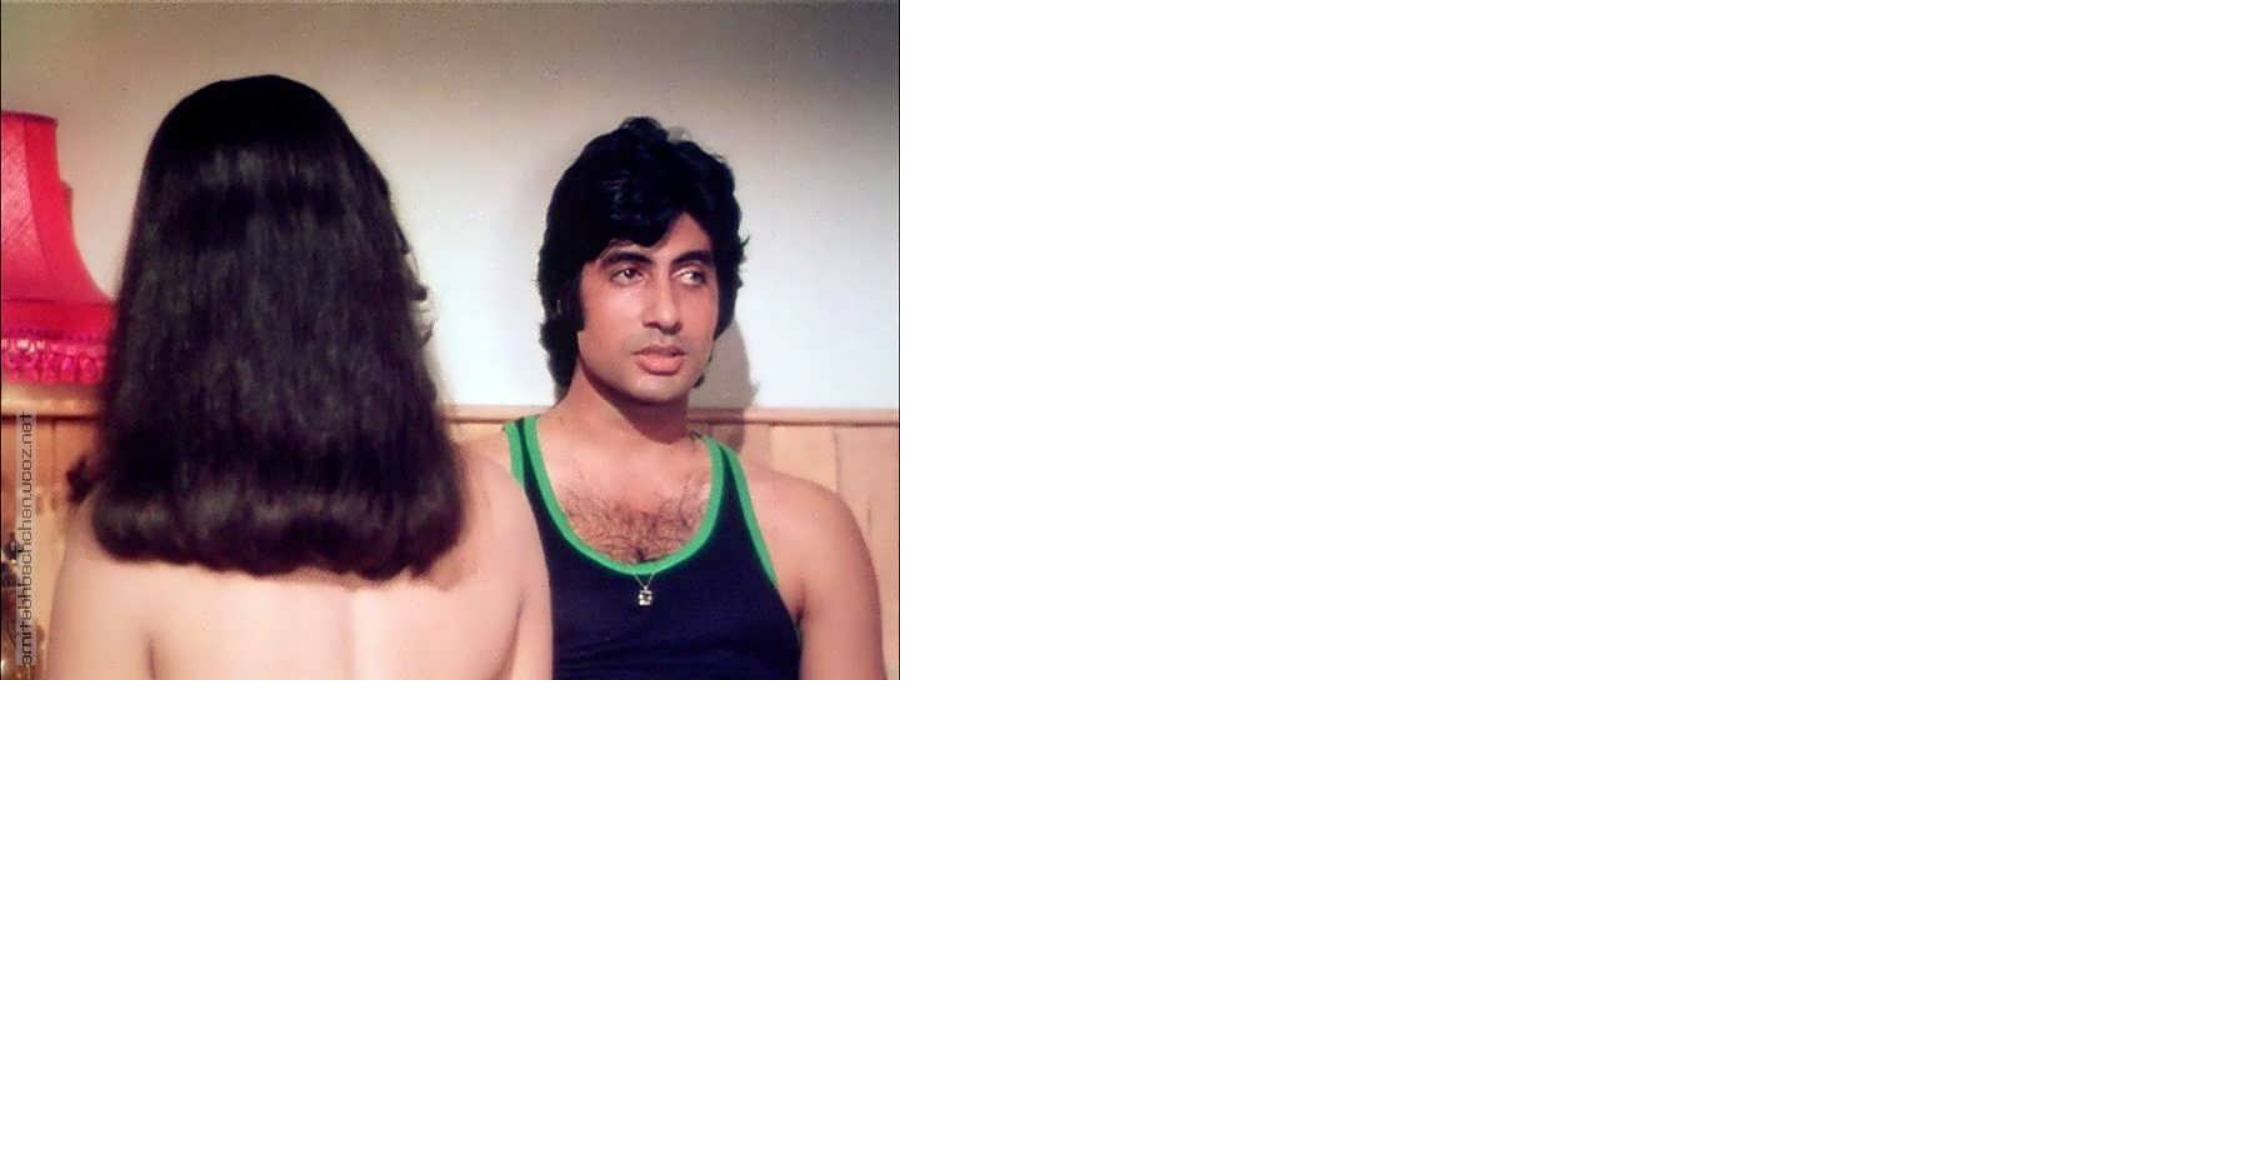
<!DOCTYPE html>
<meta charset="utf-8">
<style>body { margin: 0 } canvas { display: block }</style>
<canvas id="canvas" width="2255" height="1172"></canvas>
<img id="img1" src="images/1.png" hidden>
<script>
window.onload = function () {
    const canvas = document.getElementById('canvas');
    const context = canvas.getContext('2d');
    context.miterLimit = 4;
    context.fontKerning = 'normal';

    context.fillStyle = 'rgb(255, 255, 255)';
    context.fillRect(0, 0, 2255, 1172);
    context.drawImage(document.getElementById('img1'), 0, 0, 900, 680);
};
</script>
